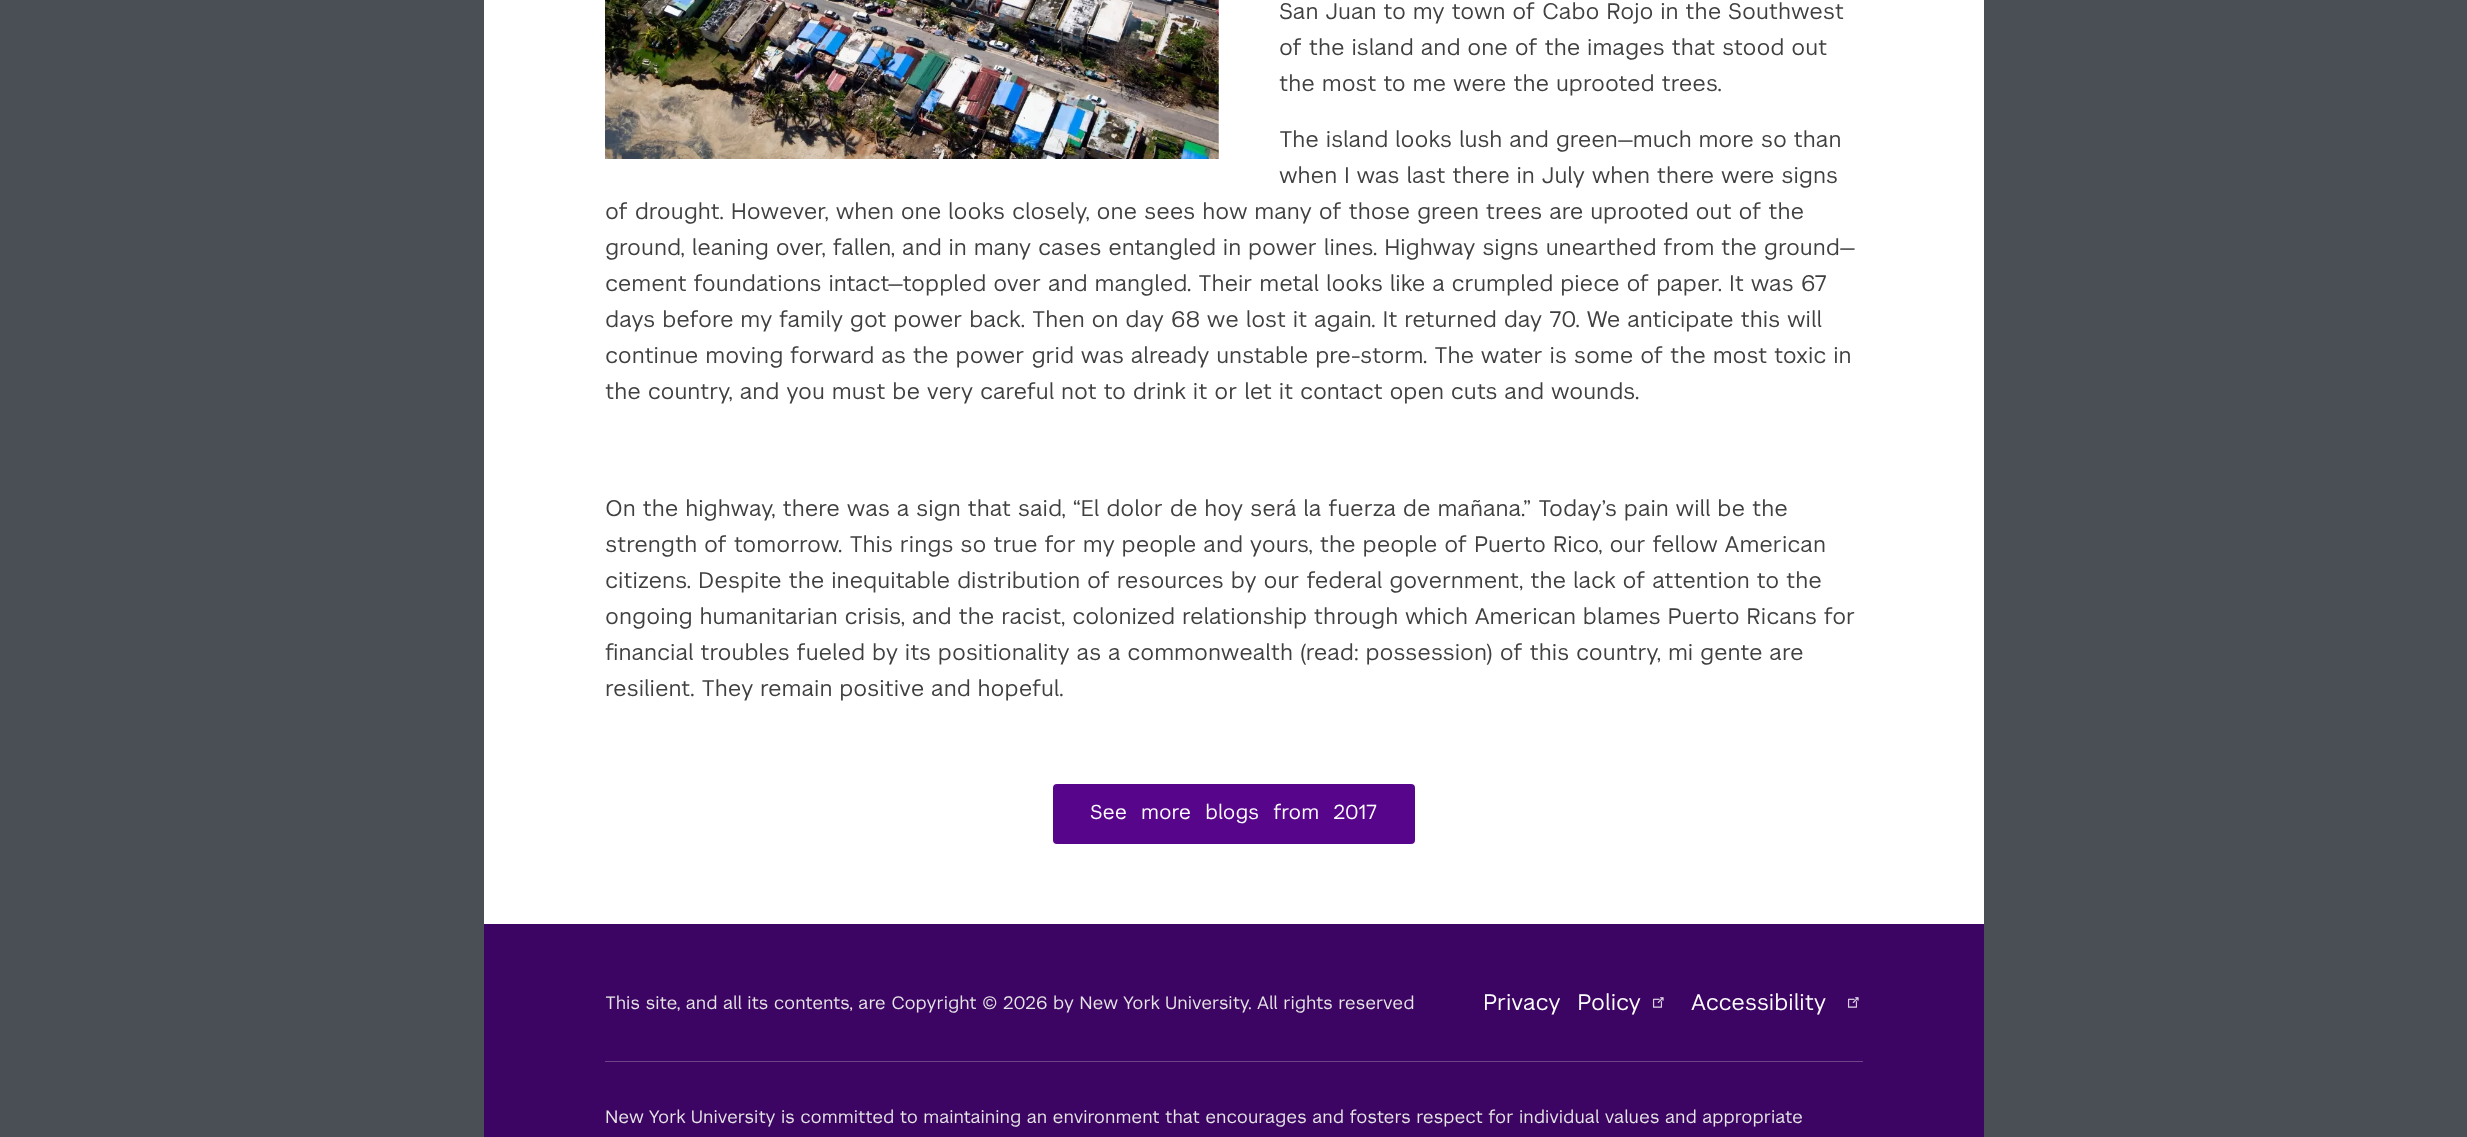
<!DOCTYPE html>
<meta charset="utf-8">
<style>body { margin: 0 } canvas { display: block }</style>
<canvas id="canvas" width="2467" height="1137"></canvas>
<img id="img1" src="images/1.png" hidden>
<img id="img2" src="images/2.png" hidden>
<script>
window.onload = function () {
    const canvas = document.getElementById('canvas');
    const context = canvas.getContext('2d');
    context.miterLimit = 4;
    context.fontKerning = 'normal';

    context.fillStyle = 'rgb(74, 79, 85)';
    context.fillRect(0, 0, 2467, 1137);
    context.fillStyle = 'rgb(255, 255, 255)';
    context.fillRect(484, 0, 1500, 924);
    context.drawImage(document.getElementById('img1'), 605, 0, 614, 159);
    context.fillStyle = 'rgb(87, 6, 140)';
    context.beginPath();
    context.roundRect(1053, 784, 362, 60, 4);
    context.fill();
    context.fillStyle = 'rgb(61, 5, 99)';
    context.fillRect(484, 924, 1500, 213);
    context.drawImage(document.getElementById('img2'), 1652, 997, 12, 11);
    context.drawImage(document.getElementById('img2'), 1847, 997, 12, 11);
    context.fillStyle = 'rgb(110, 68, 138)';
    context.fillRect(605, 1061, 1258, 1);
    context.font = '22.5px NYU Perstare';
    context.fillStyle = 'rgb(64, 64, 64)';
    context.fillText('San Juan to my town of Cabo Rojo in the Southwest', 1279, 19);
    context.fillText('of the island and one of the images that stood out', 1279, 55);
    context.fillText('the most to me were the uprooted trees.', 1279, 91);
    context.fillText('The island looks lush and green—much more so than', 1279, 147);
    context.fillText('when I was last there in July when there were signs', 1279, 183);
    context.fillText('of drought. However, when one looks closely, one sees how many of those green trees are uprooted out of the', 605, 219);
    context.fillText('ground, leaning over, fallen, and in many cases entangled in power lines. Highway signs unearthed from the ground—', 605, 255);
    context.fillText('cement foundations intact—toppled over and mangled. Their metal looks like a crumpled piece of paper. It was 67', 605, 291);
    context.fillText('days before my family got power back. Then on day 68 we lost it again. It returned day 70. We anticipate this will', 605, 327);
    context.fillText('continue moving forward as the power grid was already unstable pre-storm. The water is some of the most toxic in', 605, 363);
    context.fillText('the country, and you must be very careful not to drink it or let it contact open cuts and wounds.', 605, 399);
    context.fillText('On the highway, there was a sign that said, “El dolor de hoy será la fuerza de mañana.” Today’s pain will be the', 605, 516);
    context.fillText('strength of tomorrow. This rings so true for my people and yours, the people of Puerto Rico, our fellow American', 605, 552);
    context.fillText('citizens. Despite the inequitable distribution of resources by our federal government, the lack of attention to the', 605, 588);
    context.fillText('ongoing humanitarian crisis, and the racist, colonized relationship through which American blames Puerto Ricans for', 605, 624);
    context.fillText('financial troubles fueled by its positionality as a commonwealth (read: possession) of this country, mi gente are', 605, 660);
    context.fillText('resilient. They remain positive and hopeful.', 605, 696);
    context.wordSpacing = '8px';
    context.font = '20.25px NYU Perstare';
    context.fillStyle = 'rgb(255, 255, 255)';
    context.fillText('See more blogs from 2017', 1090, 819);
    context.wordSpacing = '0px';
    context.font = '18px NYU Perstare';
    context.fillStyle = 'rgb(229, 229, 229)';
    context.fillText('This site, and all its contents, are Copyright © 2026 by New York University. All rights reserved', 605, 1009);
    context.wordSpacing = '10px';
    context.font = '22.5px NYU Perstare';
    context.fillStyle = 'rgb(255, 255, 255)';
    context.fillText('Privacy Policy', 1483, 1010);
    context.wordSpacing = '0px';
    context.fillText('Accessibility', 1691, 1010);
    context.font = '18px NYU Perstare';
    context.fillStyle = 'rgb(229, 229, 229)';
    context.fillText('New York University is committed to maintaining an environment that encourages and fosters respect for individual values and appropriate', 605, 1123);
};
</script>
